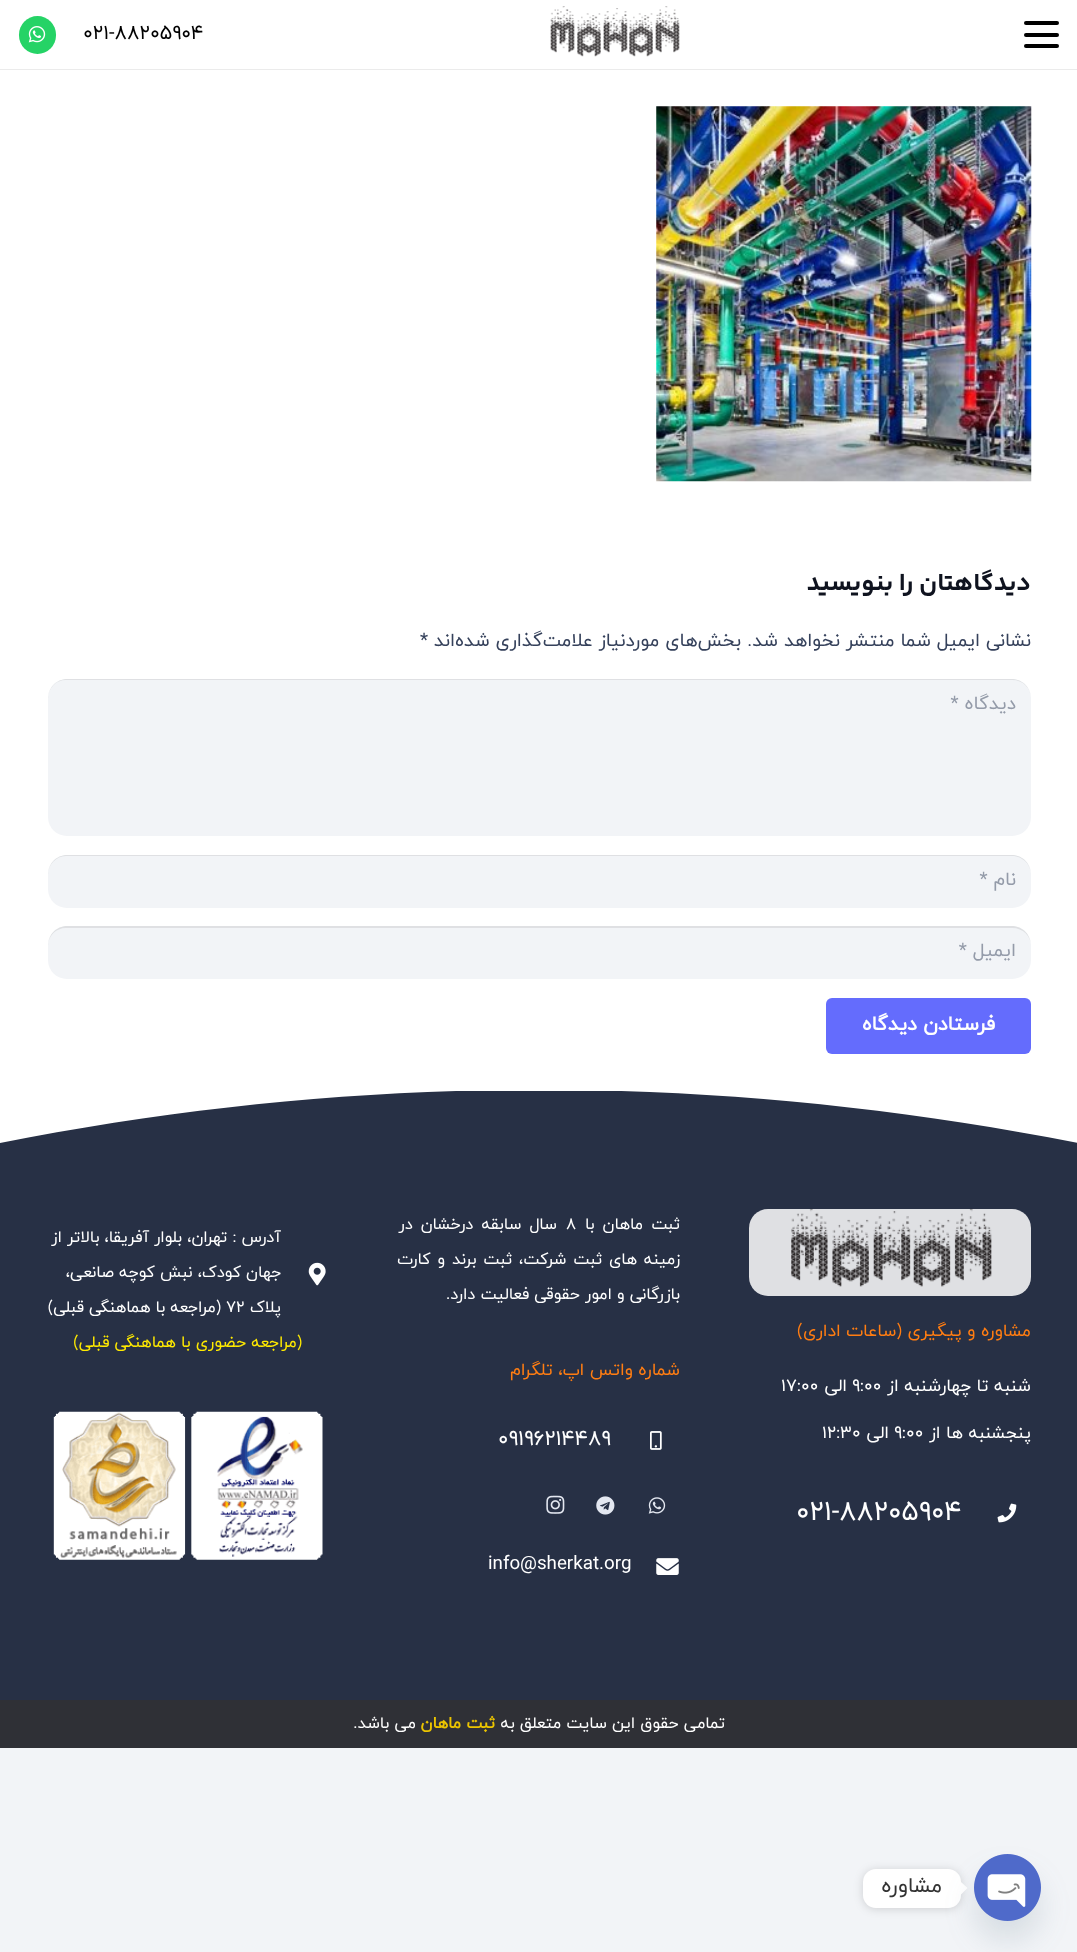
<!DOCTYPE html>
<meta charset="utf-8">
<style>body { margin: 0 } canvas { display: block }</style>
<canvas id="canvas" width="1077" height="1952"></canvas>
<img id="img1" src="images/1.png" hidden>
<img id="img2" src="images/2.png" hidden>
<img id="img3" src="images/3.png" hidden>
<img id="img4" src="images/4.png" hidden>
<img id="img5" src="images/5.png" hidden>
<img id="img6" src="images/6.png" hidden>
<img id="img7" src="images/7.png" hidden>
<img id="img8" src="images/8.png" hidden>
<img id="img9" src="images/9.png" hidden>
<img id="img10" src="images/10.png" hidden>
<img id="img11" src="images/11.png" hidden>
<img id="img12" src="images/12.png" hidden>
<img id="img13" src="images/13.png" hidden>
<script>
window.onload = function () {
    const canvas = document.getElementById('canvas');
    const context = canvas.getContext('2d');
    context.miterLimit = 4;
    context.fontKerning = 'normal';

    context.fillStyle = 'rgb(242, 244, 247)';
    context.fillRect(0, 0, 1077, 1952);
    context.fillStyle = 'rgb(255, 255, 255)';
    context.fillRect(0, 0, 1077, 1091);
    context.fillStyle = 'rgb(235, 235, 235)';
    context.beginPath();
    context.moveTo(0, 69);
    context.lineTo(0, 70);
    context.lineTo(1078, 70);
    context.lineTo(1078, 1);
    context.lineTo(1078, 69);
    context.closePath();
    context.fill();
    context.fillStyle = 'rgb(0, 0, 0)';
    context.beginPath();
    context.roundRect(1024, 33, 35, 4, 2);
    context.fill();
    context.beginPath();
    context.roundRect(1024, 21, 35, 4, 2);
    context.fill();
    context.beginPath();
    context.roundRect(1024, 44, 35, 4, 2);
    context.fill();
    context.drawImage(document.getElementById('img1'), 550, 6, 130, 51);
    context.fillStyle = 'rgb(37, 211, 102)';
    context.beginPath();
    context.roundRect(19, 16, 37, 38, 18.5);
    context.fill();
    context.drawImage(document.getElementById('img2'), 28, 26, 18, 17);
    context.drawImage(document.getElementById('img3'), 656, 106, 376, 376);
    context.fillStyle = 'rgb(242, 244, 247)';
    context.beginPath();
    context.roundRect(48, 679, 983, 157, 19);
    context.fill();
    context.fillStyle = 'rgba(0, 0, 0, 0.08)';
    context.beginPath();
    context.moveTo(66, 680);
    context.lineTo(1012, 680);
    context.bezierCurveTo(1023, 680, 1031, 688, 1031, 699);
    context.bezierCurveTo(1031, 688, 1023, 679, 1012, 679);
    context.lineTo(67, 679);
    context.bezierCurveTo(56, 679, 48, 688, 48, 699);
    context.bezierCurveTo(48, 688, 56, 680, 66, 680);
    context.closePath();
    context.fill();
    context.fillStyle = 'rgb(242, 244, 247)';
    context.beginPath();
    context.roundRect(48, 855, 983, 53, 19);
    context.fill();
    context.fillStyle = 'rgba(0, 0, 0, 0.08)';
    context.beginPath();
    context.moveTo(66, 856);
    context.lineTo(1012, 856);
    context.bezierCurveTo(1023, 856, 1031, 865, 1031, 875);
    context.bezierCurveTo(1031, 864, 1023, 855, 1012, 855);
    context.lineTo(67, 855);
    context.bezierCurveTo(56, 855, 48, 864, 48, 875);
    context.bezierCurveTo(48, 865, 56, 856, 66, 856);
    context.closePath();
    context.fill();
    context.fillStyle = 'rgb(242, 244, 247)';
    context.beginPath();
    context.roundRect(48, 926, 983, 53, 19);
    context.fill();
    context.fillStyle = 'rgba(0, 0, 0, 0.08)';
    context.beginPath();
    context.moveTo(66, 928);
    context.lineTo(1012, 928);
    context.bezierCurveTo(1023, 928, 1031, 936, 1031, 946);
    context.bezierCurveTo(1031, 935, 1023, 926, 1012, 926);
    context.lineTo(67, 926);
    context.bezierCurveTo(56, 926, 48, 935, 48, 946);
    context.bezierCurveTo(48, 936, 56, 928, 66, 928);
    context.closePath();
    context.fill();
    context.fillStyle = 'rgb(100, 108, 253)';
    context.beginPath();
    context.roundRect(826, 998, 205, 56, 6);
    context.fill();
    context.fillStyle = 'rgb(39, 48, 69)';
    context.fillRect(0, 1091, 1077, 609);
    context.save();
    context.beginPath();
    context.rect(0, 1091, 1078, 53);
    context.clip();
    context.fillStyle = 'rgb(255, 255, 255)';
    context.beginPath();
    context.moveTo(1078, 1089);
    context.lineTo(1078, 1143);
    context.bezierCurveTo(718, 1072, 359, 1072, 0, 1143);
    context.lineTo(0, 1089);
    context.closePath();
    context.fill();
    context.restore();
    context.drawImage(document.getElementById('img4'), 650, 1431, 12, 19);
    context.drawImage(document.getElementById('img5'), 648, 1497, 18, 17);
    context.drawImage(document.getElementById('img6'), 596, 1496, 19, 19);
    context.drawImage(document.getElementById('img7'), 546, 1495, 19, 19);
    context.drawImage(document.getElementById('img8'), 656, 1558, 23, 17);
    context.drawImage(document.getElementById('img9'), 308, 1262, 18, 24);
    context.drawImage(document.getElementById('img10'), 53, 1411, 270, 149);
    context.fillStyle = 'rgb(223, 224, 227)';
    context.beginPath();
    context.roundRect(749, 1209, 282, 87, 19);
    context.fill();
    context.drawImage(document.getElementById('img11'), 791, 1208, 201, 79);
    context.drawImage(document.getElementById('img12'), 997, 1503, 20, 20);
    context.fillStyle = 'rgb(47, 48, 54)';
    context.fillRect(0, 1700, 1077, 48);
    context.fillStyle = 'rgba(0, 0, 0, 0.15)';
    context.filter = 'blur(5px)';
    context.beginPath();
    context.roundRect(863, 1870, 98, 39, 13);
    context.fill();
    context.filter = 'none';
    context.fillStyle = 'rgb(255, 255, 255)';
    context.beginPath();
    context.roundRect(863, 1869, 98, 39, 13);
    context.fill();
    context.beginPath();
    context.moveTo(961, 1894.5);
    context.lineTo(961, 1882);
    context.lineTo(967.5, 1888);
    context.closePath();
    context.fill();
    context.fillStyle = 'rgba(73, 104, 126, 0.16)';
    context.filter = 'blur(15px)';
    context.beginPath();
    context.roundRect(974, 1874, 67, 67, 33.5);
    context.fill();
    context.filter = 'none';
    context.drawImage(document.getElementById('img13'), 974, 1854, 67, 67);
    context.font = '20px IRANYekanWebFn';
    context.fillStyle = 'rgb(0, 0, 0)';
    context.fillText('۰۲۱-۸۸۲۰۵۹۰۴', 83, 39);
    context.direction = 'rtl';
    context.font = 'bold 25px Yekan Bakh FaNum';
    context.fillStyle = 'rgb(15, 19, 31)';
    context.fillText('دیدگاهتان را بنویسید', 1031, 590);
    context.font = '18.75px IRANYekanWebFn';
    context.fillStyle = 'rgb(53, 65, 91)';
    context.fillText('نشانی ایمیل شما منتشر نخواهد شد.', 1031, 646);
    context.fillText('بخش‌های موردنیاز علامت‌گذاری شده‌اند', 741, 646);
    context.direction = 'ltr';
    context.fillText('*', 420, 646);
    context.direction = 'rtl';
    context.fillStyle = 'rgb(148, 155, 169)';
    context.fillText('دیدگاه *', 1016, 709);
    context.fillText('نام *', 1016, 885);
    context.fillText('ایمیل *', 1016, 956);
    context.font = 'bold 20px IRANYekanWebFn';
    context.fillStyle = 'rgb(255, 255, 255)';
    context.fillText('فرستادن دیدگاه', 995, 1030);
    context.wordSpacing = '3px';
    context.font = '16.25px IRANYekanWebFn';
    context.fillText('ثبت ماهان با', 680, 1229);
    context.wordSpacing = '0px';
    context.direction = 'ltr';
    context.fillText('۸', 566, 1229);
    context.wordSpacing = '3px';
    context.direction = 'rtl';
    context.fillText('سال سابقه درخشان در', 557, 1229);
    context.wordSpacing = '1.75px';
    context.fillText('زمینه های ثبت شرکت، ثبت برند و کارت', 680, 1264);
    context.wordSpacing = '0px';
    context.fillText('بازرگانی و امور حقوقی فعالیت دارد.', 680, 1299);
    context.font = '17.5px IRANYekanWebFn';
    context.fillStyle = 'rgb(255, 125, 18)';
    context.fillText('شماره واتس اپ، تلگرام', 680, 1375);
    context.direction = 'ltr';
    context.font = '21.25px IRANYekanWebFn';
    context.fillStyle = 'rgb(255, 255, 255)';
    context.fillText('۰۹۱۹۶۲۱۴۴۸۹', 498, 1445);
    context.font = '18.75px IRANYekanWebFn';
    context.fillText('info@sherkat.org', 488, 1569);
    context.direction = 'rtl';
    context.font = '16.25px IRANYekanWebFn';
    context.fillText('آدرس : تهران، بلوار آفریقا، بالاتر از', 281, 1242);
    context.fillText('جهان کودک، نبش کوچه صانعی،', 281, 1277);
    context.fillText('پلاک', 281, 1312);
    context.direction = 'ltr';
    context.fillText('۷۲', 226, 1312);
    context.direction = 'rtl';
    context.fillText('(مراجعه با هماهنگی قبلی)', 221, 1312);
    context.fillStyle = 'rgb(255, 234, 0)';
    context.fillText('(مراجعه حضوری با هماهنگی قبلی)', 302, 1347);
    context.font = '17.5px IRANYekanWebFn';
    context.fillStyle = 'rgb(255, 125, 18)';
    context.fillText('مشاوره و پیگیری (ساعات اداری)', 1031, 1336);
    context.fillStyle = 'rgb(255, 255, 255)';
    context.fillText('شنبه تا چهارشنبه از', 1031, 1391);
    context.direction = 'ltr';
    context.fillText('۹:۰۰', 852, 1391);
    context.direction = 'rtl';
    context.fillText('الی', 847, 1391);
    context.direction = 'ltr';
    context.fillText('۱۷:۰۰', 781, 1391);
    context.direction = 'rtl';
    context.fillText('پنجشنبه ها از', 1031, 1438);
    context.direction = 'ltr';
    context.fillText('۹:۰۰', 894, 1438);
    context.direction = 'rtl';
    context.fillText('الی', 889, 1438);
    context.direction = 'ltr';
    context.fillText('۱۲:۳۰', 822, 1438);
    context.font = '27.5px IRANYekanWebFn';
    context.fillText('۰۲۱-۸۸۲۰۵۹۰۴', 796, 1520);
    context.direction = 'rtl';
    context.font = '16.25px IRANYekanWebFn';
    context.fillText('تمامی حقوق این سایت متعلق به', 725, 1728);
    context.font = 'bold 16.25px IRANYekanWebFn';
    context.fillStyle = 'rgb(235, 196, 0)';
    context.fillText('ثبت ماهان', 495, 1728);
    context.font = '16.25px IRANYekanWebFn';
    context.fillStyle = 'rgb(255, 255, 255)';
    context.fillText('می باشد.', 416, 1728);
    context.font = '21.25px IRANYekanWebFn';
    context.fillStyle = 'rgb(51, 51, 51)';
    context.fillText('مشاوره', 942, 1892);
};
</script>
